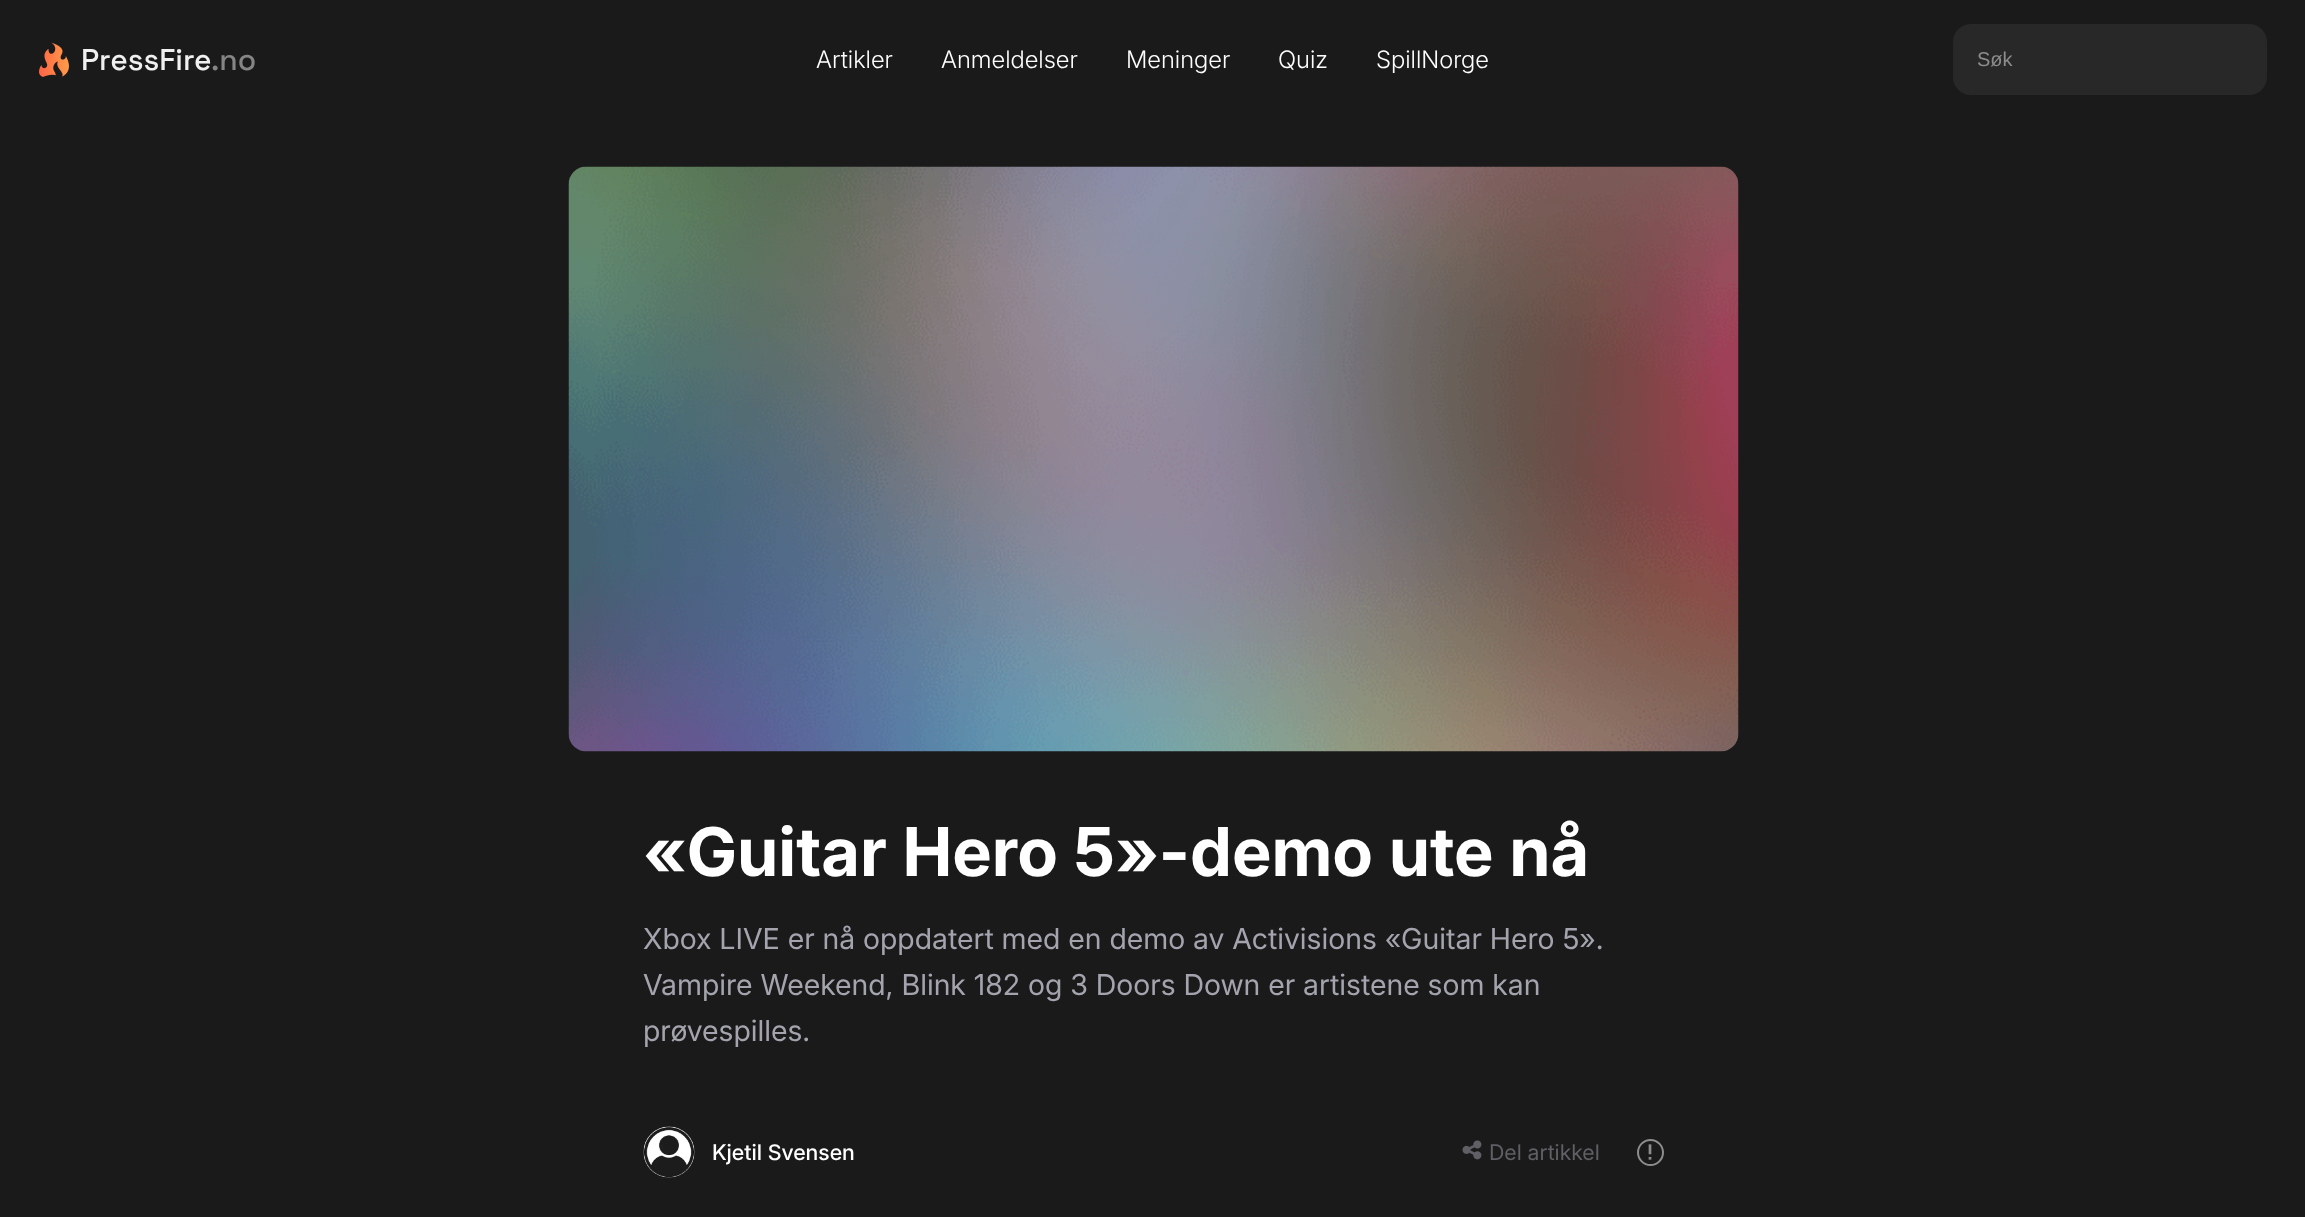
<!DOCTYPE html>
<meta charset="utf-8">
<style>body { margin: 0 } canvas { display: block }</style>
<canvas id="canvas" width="2305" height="1217"></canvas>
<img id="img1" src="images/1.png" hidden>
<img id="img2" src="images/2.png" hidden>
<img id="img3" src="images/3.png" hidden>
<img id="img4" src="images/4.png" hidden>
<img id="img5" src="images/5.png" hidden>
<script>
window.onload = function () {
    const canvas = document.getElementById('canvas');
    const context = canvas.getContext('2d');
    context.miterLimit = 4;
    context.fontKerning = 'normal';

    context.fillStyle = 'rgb(26, 26, 26)';
    context.fillRect(0, 0, 2305, 1217);
    context.drawImage(document.getElementById('img1'), 39, 42, 30, 35);
    context.fillStyle = 'rgb(40, 40, 40)';
    context.beginPath();
    context.roundRect(1953, 24, 314, 71, 18);
    context.fill();
    context.drawImage(document.getElementById('img2'), 568, 166, 1171, 586);
    context.drawImage(document.getElementById('img3'), 643, 1126, 52, 52);
    context.drawImage(document.getElementById('img4'), 1462, 1140, 20, 20);
    context.drawImage(document.getElementById('img5'), 1648, 1144, 4, 16);
    context.beginPath();
    context.arc(1650.5, 1152.5, 12.5, 0, 2 * Math.PI);
    context.strokeStyle = 'rgb(141, 141, 141)';
    context.lineWidth = 2;
    context.stroke();
    context.font = '500 30px Space Grotesk';
    context.fillStyle = 'rgb(240, 240, 240)';
    context.fillText('PressFire', 81, 70);
    context.fillStyle = 'rgb(133, 133, 133)';
    context.fillText('.no', 211, 70);
    context.font = '300 24px Inter';
    context.fillStyle = 'rgb(255, 255, 255)';
    context.fillText('Artikler', 816, 68);
    context.fillText('Anmeldelser', 941, 68);
    context.fillText('Meninger', 1126, 68);
    context.fillText('Quiz', 1278, 68);
    context.fillText('SpillNorge', 1376, 68);
    context.font = '20px Liberation Sans';
    context.fillStyle = 'rgb(141, 140, 140)';
    context.fillText('Søk', 1977, 66);
    context.font = 'bold 67.25px Inter';
    context.fillStyle = 'rgb(255, 255, 255)';
    context.fillText('«Guitar Hero 5»-demo ute nå', 643, 876);
    context.font = '28.8px Inter';
    context.fillStyle = 'rgb(164, 164, 175)';
    context.fillText('Xbox LIVE er nå oppdatert med en demo av Activisions «Guitar Hero 5».', 643, 949);
    context.fillText('Vampire Weekend, Blink 182 og 3 Doors Down er artistene som kan', 643, 995);
    context.fillText('prøvespilles.', 643, 1041);
    context.font = '500 21.5px Inter';
    context.fillStyle = 'rgb(255, 255, 255)';
    context.fillText('Kjetil Svensen', 712, 1160);
    context.font = '21.5px Inter';
    context.fillStyle = 'rgb(95, 95, 101)';
    context.fillText('Del artikkel', 1489, 1160);
};
</script>
